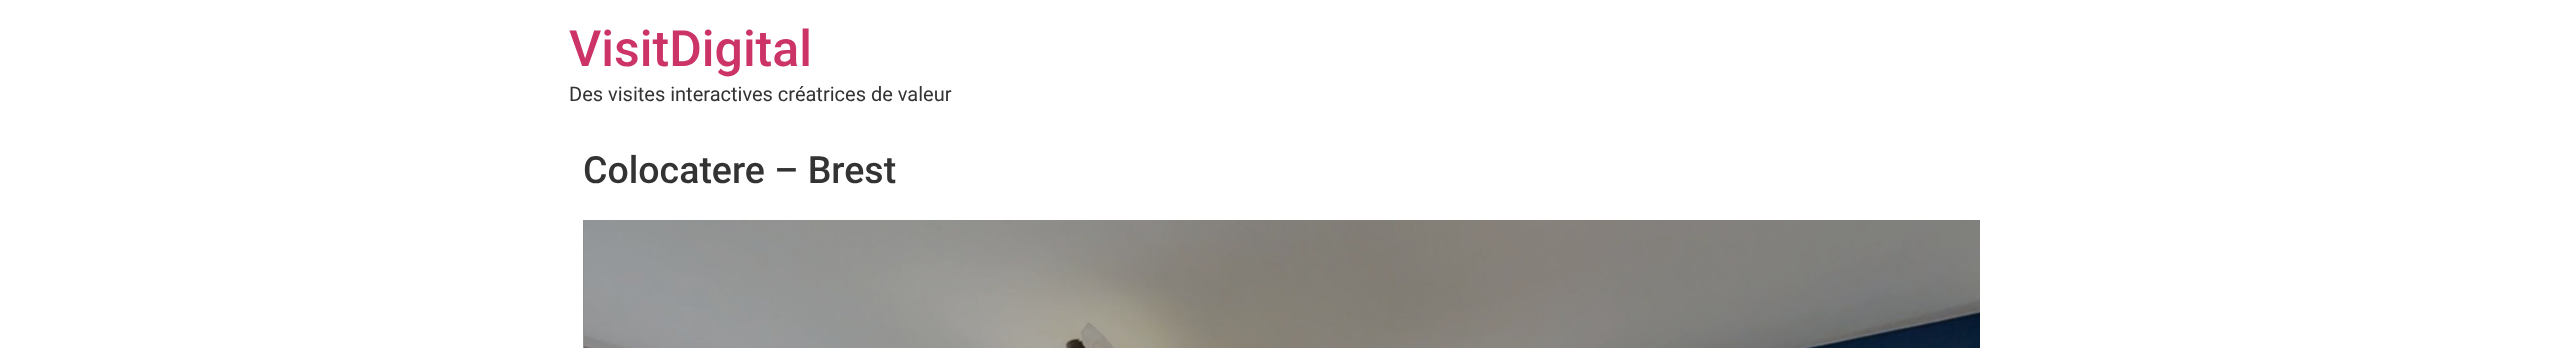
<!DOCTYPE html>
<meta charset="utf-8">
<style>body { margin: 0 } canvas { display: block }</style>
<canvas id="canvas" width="2563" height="348"></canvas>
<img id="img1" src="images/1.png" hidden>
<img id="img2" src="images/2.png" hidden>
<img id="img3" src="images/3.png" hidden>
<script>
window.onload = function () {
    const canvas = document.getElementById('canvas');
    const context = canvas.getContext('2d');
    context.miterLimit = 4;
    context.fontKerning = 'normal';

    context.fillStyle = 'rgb(255, 255, 255)';
    context.fillRect(0, 0, 2563, 348);
    context.drawImage(document.getElementById('img1'), 583, 220, 1, 128);
    context.drawImage(document.getElementById('img2'), 583, 220, 1, 128);
    context.drawImage(document.getElementById('img3'), 584, 220, 1396, 128);
    context.font = '500 50px Roboto';
    context.fillStyle = 'rgb(204, 51, 102)';
    context.fillText('VisitDigital', 569, 66);
    context.font = '20px Roboto';
    context.fillStyle = 'rgb(51, 51, 51)';
    context.fillText('Des visites interactives créatrices de valeur', 569, 101);
    context.font = '500 37.5px Roboto';
    context.fillText('Colocatere – Brest', 583, 183);
};
</script>
